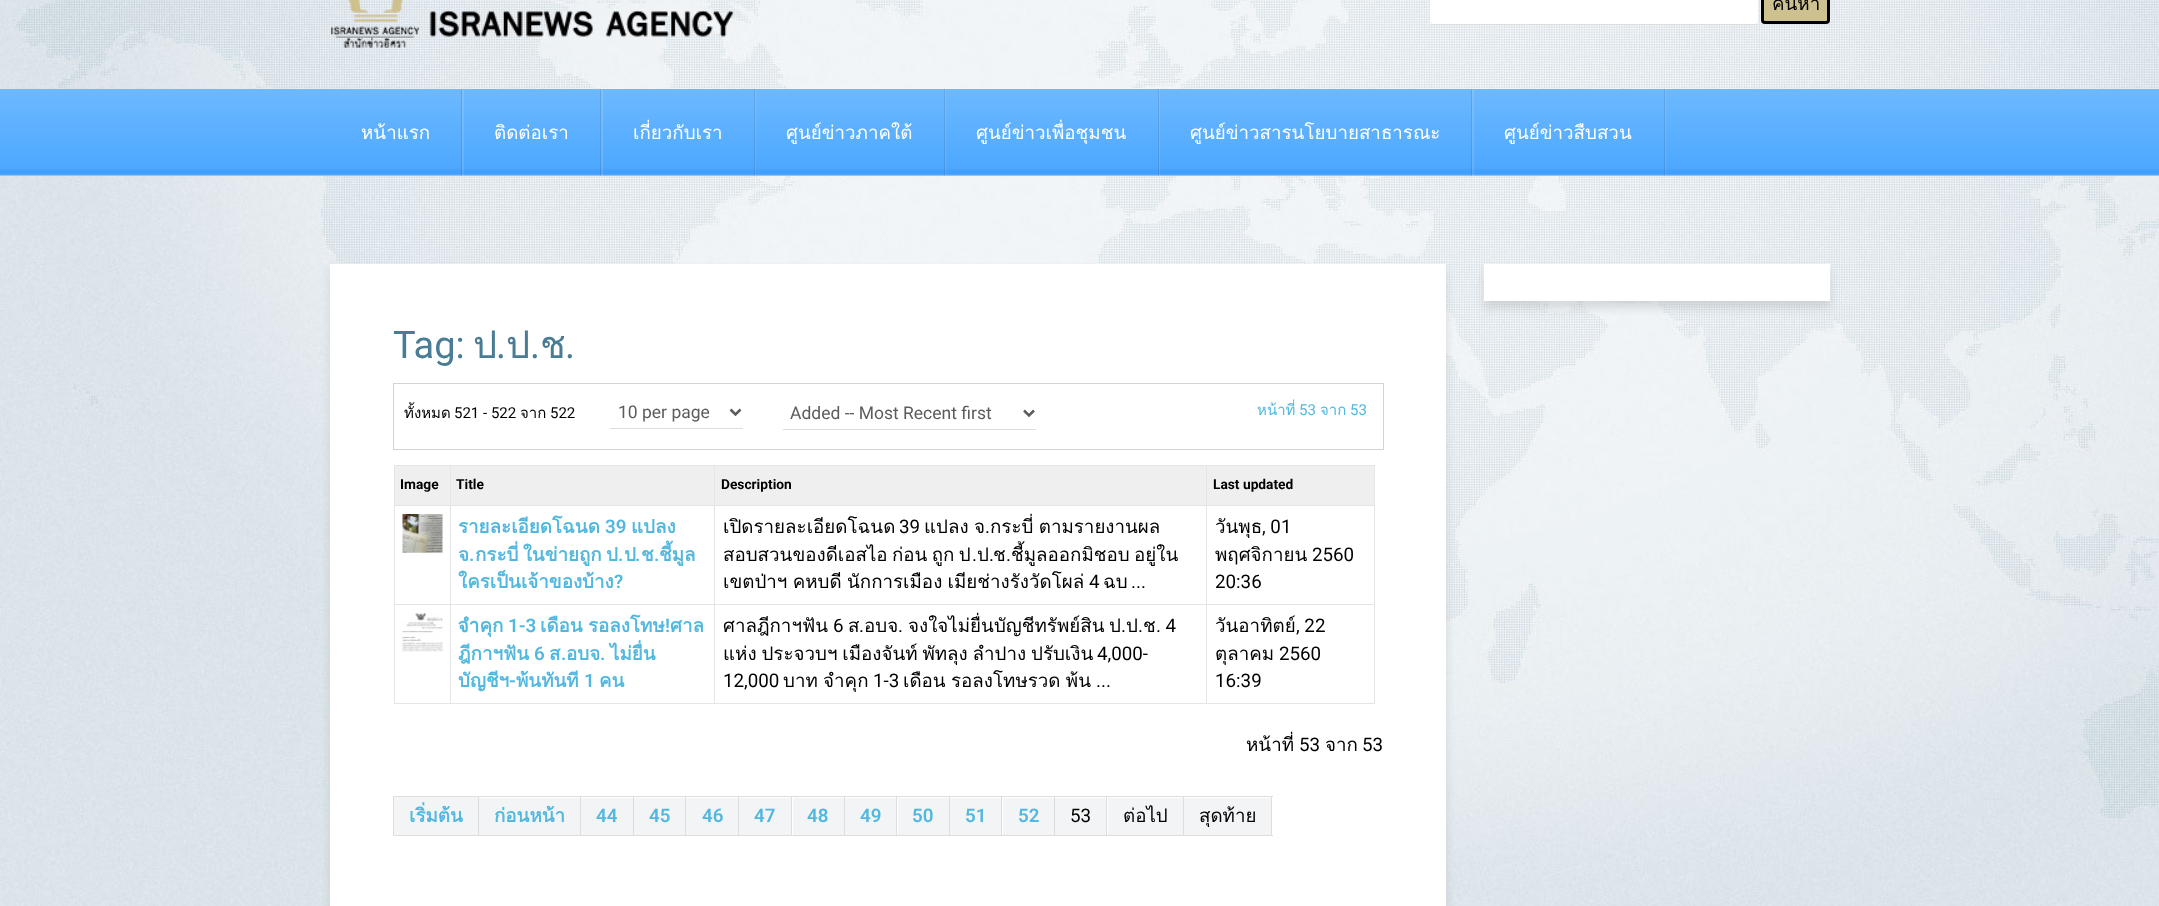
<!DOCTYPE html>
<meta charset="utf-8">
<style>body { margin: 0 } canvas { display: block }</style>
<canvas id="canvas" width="2159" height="906"></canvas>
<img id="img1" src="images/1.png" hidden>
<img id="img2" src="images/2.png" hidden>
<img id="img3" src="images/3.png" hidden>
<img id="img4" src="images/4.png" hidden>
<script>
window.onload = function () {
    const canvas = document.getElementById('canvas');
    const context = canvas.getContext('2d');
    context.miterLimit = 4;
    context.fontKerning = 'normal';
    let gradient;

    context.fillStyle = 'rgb(255, 255, 255)';
    context.fillRect(0, 0, 2159, 906);
    context.drawImage(document.getElementById('img1'), 0, 0, 2159, 906);
    context.drawImage(document.getElementById('img2'), 331, 0, 403, 48);
    context.beginPath();
    context.moveTo(1434, -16);
    context.lineTo(1754, -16);
    context.bezierCurveTo(1756, -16, 1758, -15, 1758, -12);
    context.lineTo(1758, 21);
    context.bezierCurveTo(1758, 23, 1756, 24, 1754, 24);
    context.lineTo(1434, 24);
    context.bezierCurveTo(1432, 24, 1430, 23, 1430, 21);
    context.lineTo(1430, -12);
    context.bezierCurveTo(1430, -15, 1432, -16, 1434, -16);
    context.closePath();
    context.fill();
    context.fillStyle = 'rgb(221, 221, 221)';
    context.fillRect(1433, 24, 323, 1);
    context.fillStyle = 'rgb(205, 193, 144)';
    context.beginPath();
    context.roundRect(1762.5, -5.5, 66, 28, 2.5);
    context.fill();
    context.strokeStyle = 'rgb(0, 0, 0)';
    context.lineWidth = 3;
    context.stroke();
    gradient = context.createLinearGradient(1080, 89, 1080, 176);
    gradient.addColorStop(0, 'rgb(109, 186, 255)');
    gradient.addColorStop(0.04, 'rgb(107, 184, 255)');
    gradient.addColorStop(0.91, 'rgb(78, 168, 255)');
    gradient.addColorStop(0.94, 'rgb(65, 159, 255)');
    gradient.addColorStop(0.98, 'rgb(65, 159, 255)');
    gradient.addColorStop(1, 'rgb(200, 205, 211)');
    context.fillStyle = gradient;
    context.fillRect(0, 89, 2159, 87);
    context.fillStyle = 'rgba(255, 255, 255, 0.12)';
    context.fillRect(462, 89, 2, 87);
    context.fillStyle = 'rgba(0, 0, 0, 0.1)';
    context.fillRect(461, 89, 1, 87);
    context.fillStyle = 'rgba(255, 255, 255, 0.12)';
    context.fillRect(601, 89, 2, 87);
    context.fillStyle = 'rgba(0, 0, 0, 0.1)';
    context.fillRect(600, 89, 1, 87);
    context.fillStyle = 'rgba(255, 255, 255, 0.12)';
    context.fillRect(755, 89, 1, 87);
    context.fillStyle = 'rgba(0, 0, 0, 0.1)';
    context.fillRect(754, 89, 1, 87);
    context.fillStyle = 'rgba(255, 255, 255, 0.12)';
    context.fillRect(945, 89, 1, 87);
    context.fillStyle = 'rgba(0, 0, 0, 0.1)';
    context.fillRect(944, 89, 1, 87);
    context.fillStyle = 'rgba(255, 255, 255, 0.12)';
    context.fillRect(1159, 89, 1, 87);
    context.fillStyle = 'rgba(0, 0, 0, 0.1)';
    context.fillRect(1158, 89, 1, 87);
    context.fillStyle = 'rgba(255, 255, 255, 0.12)';
    context.fillRect(1472, 89, 2, 87);
    context.fillStyle = 'rgba(0, 0, 0, 0.1)';
    context.fillRect(1471, 89, 1, 87);
    context.fillStyle = 'rgba(255, 255, 255, 0.12)';
    context.fillRect(1665, 89, 1, 87);
    context.fillStyle = 'rgba(0, 0, 0, 0.1)';
    context.fillRect(1664, 89, 1, 87);
    context.fillStyle = 'rgba(160, 166, 168, 0.35)';
    context.filter = 'blur(5px)';
    context.beginPath();
    context.rect(1484, 270, 346, 38);
    context.fill();
    context.filter = 'none';
    context.fillStyle = 'rgb(255, 255, 255)';
    context.fillRect(1484, 264, 346, 37);
    context.fillStyle = 'rgba(160, 166, 168, 0.35)';
    context.filter = 'blur(5px)';
    context.beginPath();
    context.rect(330, 270, 1116, 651);
    context.fill();
    context.filter = 'none';
    context.fillStyle = 'rgb(255, 255, 255)';
    context.fillRect(330, 264, 1116, 642);
    context.strokeStyle = 'rgb(211, 211, 211)';
    context.lineWidth = 1;
    context.strokeRect(393.5, 383.5, 990, 66);
    context.fillStyle = 'rgb(221, 221, 221)';
    context.fillRect(610, 428, 133, 1);
    context.beginPath();
    context.moveTo(730.5, 409.5);
    context.lineTo(735.5, 414.5);
    context.lineTo(740.5, 409.5);
    context.strokeStyle = 'rgb(92, 92, 92)';
    context.lineWidth = 2.5;
    context.stroke();
    context.fillRect(783, 429, 253, 1);
    context.beginPath();
    context.moveTo(1024, 410.5);
    context.lineTo(1029, 415.5);
    context.lineTo(1034, 410.5);
    context.stroke();
    context.fillStyle = 'rgb(229, 229, 229)';
    context.fillRect(394, 465, 981, 1);
    context.fillRect(1374, 465, 1, 239);
    context.fillRect(394, 703, 981, 1);
    context.fillRect(394, 465, 1, 239);
    context.fillStyle = 'rgb(239, 239, 239)';
    context.fillRect(395, 466, 55, 39);
    context.fillStyle = 'rgb(229, 229, 229)';
    context.fillRect(1206, 604, 1, 100);
    context.fillRect(1206, 604, 169, 1);
    context.fillRect(1206, 505, 1, 100);
    context.fillRect(1206, 505, 169, 1);
    context.fillRect(1206, 465, 1, 41);
    context.fillRect(714, 604, 1, 100);
    context.fillRect(714, 604, 494, 1);
    context.fillRect(714, 505, 1, 100);
    context.fillRect(714, 505, 494, 1);
    context.fillRect(714, 465, 1, 41);
    context.fillRect(450, 604, 1, 100);
    context.fillRect(450, 604, 265, 1);
    context.fillRect(450, 505, 1, 100);
    context.fillRect(450, 505, 265, 1);
    context.fillRect(450, 465, 1, 41);
    context.fillRect(394, 505, 57, 1);
    context.fillStyle = 'rgb(239, 239, 239)';
    context.fillRect(451, 466, 263, 39);
    context.fillRect(715, 466, 491, 39);
    context.fillRect(1207, 466, 167, 39);
    context.fillStyle = 'rgb(229, 229, 229)';
    context.fillRect(394, 604, 57, 1);
    context.drawImage(document.getElementById('img3'), 402, 514, 41, 39);
    context.drawImage(document.getElementById('img4'), 402, 612, 41, 40);
    context.fillStyle = 'rgb(242, 244, 245)';
    context.beginPath();
    context.rect(393.5, 796.5, 85, 39);
    context.fill();
    context.strokeStyle = 'rgb(221, 221, 221)';
    context.lineWidth = 1;
    context.stroke();
    context.fillRect(479, 798, 101, 37);
    context.fillStyle = 'rgb(221, 221, 221)';
    context.fillRect(479, 796, 794, 1);
    context.fillRect(580, 796, 1, 40);
    context.fillRect(479, 835, 102, 1);
    context.fillStyle = 'rgb(242, 244, 245)';
    context.fillRect(581, 798, 52, 37);
    context.fillStyle = 'rgb(221, 221, 221)';
    context.fillRect(633, 796, 1, 40);
    context.fillRect(581, 835, 53, 1);
    context.fillStyle = 'rgb(242, 244, 245)';
    context.fillRect(634, 798, 51, 37);
    context.fillStyle = 'rgb(221, 221, 221)';
    context.fillRect(685, 796, 1, 40);
    context.fillRect(634, 835, 52, 1);
    context.fillStyle = 'rgb(242, 244, 245)';
    context.fillRect(686, 798, 52, 37);
    context.fillStyle = 'rgb(221, 221, 221)';
    context.fillRect(738, 796, 1, 40);
    context.fillRect(686, 835, 53, 1);
    context.fillStyle = 'rgb(242, 244, 245)';
    context.fillRect(739, 798, 52, 37);
    context.fillStyle = 'rgb(221, 221, 221)';
    context.fillRect(791, 796, 1, 40);
    context.fillRect(739, 835, 54, 1);
    context.fillStyle = 'rgb(242, 244, 245)';
    context.fillRect(793, 798, 51, 37);
    context.fillStyle = 'rgb(221, 221, 221)';
    context.fillRect(844, 796, 1, 40);
    context.fillRect(793, 835, 52, 1);
    context.fillStyle = 'rgb(242, 244, 245)';
    context.fillRect(845, 798, 51, 37);
    context.fillStyle = 'rgb(221, 221, 221)';
    context.fillRect(896, 796, 1, 40);
    context.fillRect(845, 835, 53, 1);
    context.fillStyle = 'rgb(242, 244, 245)';
    context.fillRect(898, 798, 51, 37);
    context.fillStyle = 'rgb(221, 221, 221)';
    context.fillRect(949, 796, 1, 40);
    context.fillRect(898, 835, 52, 1);
    context.fillStyle = 'rgb(242, 244, 245)';
    context.fillRect(950, 798, 51, 37);
    context.fillStyle = 'rgb(221, 221, 221)';
    context.fillRect(1001, 796, 1, 40);
    context.fillRect(950, 835, 53, 1);
    context.fillStyle = 'rgb(242, 244, 245)';
    context.fillRect(1003, 798, 51, 37);
    context.fillStyle = 'rgb(221, 221, 221)';
    context.fillRect(1054, 796, 1, 40);
    context.fillRect(1003, 835, 52, 1);
    context.fillStyle = 'rgb(242, 244, 245)';
    context.fillRect(1055, 798, 51, 37);
    context.fillStyle = 'rgb(221, 221, 221)';
    context.fillRect(1106, 796, 1, 40);
    context.fillRect(1055, 835, 53, 1);
    context.fillStyle = 'rgb(242, 244, 245)';
    context.fillRect(1108, 798, 75, 37);
    context.fillStyle = 'rgb(221, 221, 221)';
    context.fillRect(1183, 796, 1, 40);
    context.fillRect(1108, 835, 76, 1);
    context.fillStyle = 'rgb(242, 244, 245)';
    context.fillRect(1184, 798, 87, 37);
    context.fillStyle = 'rgb(221, 221, 221)';
    context.fillRect(1271, 796, 1, 40);
    context.fillRect(1184, 835, 89, 1);
    context.font = '18.75px Loma';
    context.fillStyle = 'rgb(0, 0, 0)';
    context.fillText('ค้นหา', 1772, 10);
    context.fillStyle = 'rgb(255, 255, 255)';
    context.fillText('หน้าแรก', 361, 139);
    context.fillText('ติดต่อเรา', 494, 139);
    context.fillText('เกี่ยวกับเรา', 633, 139);
    context.fillText('ศูนย์ข่าวภาคใต้', 786, 139);
    context.fillText('ศูนย์ข่าวเพื่อชุมชน', 976, 139);
    context.fillText('ศูนย์ข่าวสารนโยบายสาธารณะ', 1190, 139);
    context.fillText('ศูนย์ข่าวสืบสวน', 1504, 139);
    context.font = '38px Roboto';
    context.fillStyle = 'rgb(73, 124, 149)';
    context.fillText('Tag:', 393, 358);
    context.font = '38px Loma';
    context.fillText('ป', 473, 358);
    context.font = '38px Roboto';
    context.fillText('.', 496, 358);
    context.font = '38px Loma';
    context.fillText('ป', 506, 358);
    context.font = '38px Roboto';
    context.fillText('.', 530, 358);
    context.font = '38px Loma';
    context.fillText('ช', 540, 358);
    context.font = '38px Roboto';
    context.fillText('.', 565, 358);
    context.font = '15px Loma';
    context.fillStyle = 'rgb(0, 0, 0)';
    context.fillText('ทั้งหมด', 404, 418);
    context.font = '15px Roboto';
    context.fillText('521 - 522', 454, 418);
    context.font = '15px Loma';
    context.fillText('จาก', 520, 418);
    context.font = '15px Roboto';
    context.fillText('522', 550, 418);
    context.font = '17.5px Roboto';
    context.fillStyle = 'rgb(92, 92, 92)';
    context.fillText('10 per page', 618, 418);
    context.fillText('Added -- Most Recent first', 790, 419);
    context.font = '15px Loma';
    context.fillStyle = 'rgb(82, 184, 223)';
    context.fillText('หน้าที่', 1257, 415);
    context.font = '15px Roboto';
    context.fillText('53', 1299, 415);
    context.font = '15px Loma';
    context.fillText('จาก', 1320, 415);
    context.font = '15px Roboto';
    context.fillText('53', 1350, 415);
    context.font = 'bold 13.75px Roboto';
    context.fillStyle = 'rgb(0, 0, 0)';
    context.fillText('Image', 400, 489);
    context.fillText('Title', 456, 489);
    context.fillText('Description', 721, 489);
    context.fillText('Last updated', 1213, 489);
    context.font = 'bold 18.75px Loma';
    context.fillStyle = 'rgb(82, 184, 223)';
    context.fillText('รายละเอียดโฉนด', 458, 533);
    context.font = '600 18.75px Roboto';
    context.fillText('39', 605, 533);
    context.font = 'bold 18.75px Loma';
    context.fillText('แปลง', 631, 533);
    context.fillText('จ', 458, 561);
    context.font = '600 18.75px Roboto';
    context.fillText('.', 469, 561);
    context.wordSpacing = '-2px';
    context.font = 'bold 18.75px Loma';
    context.fillText('กระบี่ ในข่ายถูก ป', 475, 561);
    context.wordSpacing = '0px';
    context.font = '600 18.75px Roboto';
    context.fillText('.', 618, 561);
    context.font = 'bold 18.75px Loma';
    context.fillText('ป', 624, 561);
    context.font = '600 18.75px Roboto';
    context.fillText('.', 635, 561);
    context.font = 'bold 18.75px Loma';
    context.fillText('ช', 641, 561);
    context.font = '600 18.75px Roboto';
    context.fillText('.', 654, 561);
    context.font = 'bold 18.75px Loma';
    context.fillText('ชี้มูล', 659, 561);
    context.fillText('ใครเป็นเจ้าของบ้าง', 458, 588);
    context.font = '600 18.75px Roboto';
    context.fillText('?', 614, 588);
    context.font = '18.75px Loma';
    context.fillStyle = 'rgb(0, 0, 0)';
    context.fillText('เปิดรายละเอียดโฉนด', 723, 533);
    context.font = '18.75px Roboto';
    context.fillText('39', 899, 533);
    context.wordSpacing = '-1px';
    context.font = '18.75px Loma';
    context.fillText('แปลง จ', 924, 533);
    context.wordSpacing = '0px';
    context.font = '18.75px Roboto';
    context.fillText('.', 985, 533);
    context.wordSpacing = '-1px';
    context.font = '18.75px Loma';
    context.fillText('กระบี่ ตามรายงานผล', 990, 533);
    context.wordSpacing = '-2px';
    context.fillText('สอบสวนของดีเอสไอ ก่อน ถูก ป', 723, 561);
    context.wordSpacing = '0px';
    context.font = '18.75px Roboto';
    context.fillText('.', 972, 561);
    context.font = '18.75px Loma';
    context.fillText('ป', 977, 561);
    context.font = '18.75px Roboto';
    context.fillText('.', 989, 561);
    context.font = '18.75px Loma';
    context.fillText('ช', 993, 561);
    context.font = '18.75px Roboto';
    context.fillText('.', 1006, 561);
    context.wordSpacing = '-2px';
    context.font = '18.75px Loma';
    context.fillText('ชี้มูลออกมิชอบ อยู่ใน', 1011, 561);
    context.wordSpacing = '-1px';
    context.fillText('เขตป่าฯ คหบดี นักการเมือง เมียช่างรังวัดโผล่', 723, 588);
    context.wordSpacing = '0px';
    context.font = '18.75px Roboto';
    context.fillText('4', 1089, 588);
    context.font = '18.75px Loma';
    context.fillText('ฉบ', 1103, 588);
    context.font = '18.75px Roboto';
    context.fillText('...', 1131, 588);
    context.font = '18.75px Loma';
    context.fillText('วันพุธ', 1215, 533);
    context.font = '18.75px Roboto';
    context.fillText(', 01', 1262, 533);
    context.font = '18.75px Loma';
    context.fillText('พฤศจิกายน', 1215, 561);
    context.font = '18.75px Roboto';
    context.fillText('2560', 1312, 561);
    context.fillText('20:36', 1215, 588);
    context.font = 'bold 18.75px Loma';
    context.fillStyle = 'rgb(82, 184, 223)';
    context.fillText('จำคุก', 458, 632);
    context.font = '600 18.75px Roboto';
    context.fillText('1-3', 508, 632);
    context.wordSpacing = '-1px';
    context.font = 'bold 18.75px Loma';
    context.fillText('เดือน รอลงโทษ', 540, 632);
    context.wordSpacing = '0px';
    context.font = '600 18.75px Roboto';
    context.fillText('!', 665, 632);
    context.font = 'bold 18.75px Loma';
    context.fillText('ศาล', 670, 632);
    context.fillText('ฎีกาฯฟัน', 458, 660);
    context.font = '600 18.75px Roboto';
    context.fillText('6', 534, 660);
    context.font = 'bold 18.75px Loma';
    context.fillText('ส', 549, 660);
    context.font = '600 18.75px Roboto';
    context.fillText('.', 561, 660);
    context.font = 'bold 18.75px Loma';
    context.fillText('อบจ', 566, 660);
    context.font = '600 18.75px Roboto';
    context.fillText('.', 600, 660);
    context.font = 'bold 18.75px Loma';
    context.fillText('ไม่ยื่น', 610, 660);
    context.fillText('บัญชีฯ', 458, 687);
    context.font = '600 18.75px Roboto';
    context.fillText('1', 584, 687);
    context.font = 'bold 18.75px Loma';
    context.fillText('คน', 599, 687);
    context.font = '600 18.75px Roboto';
    context.fillText('-', 509, 687);
    context.font = 'bold 18.75px Loma';
    context.fillText('พ้นทันที', 516, 687);
    context.font = '18.75px Loma';
    context.fillStyle = 'rgb(0, 0, 0)';
    context.fillText('ศาลฎีกาฯฟัน', 723, 632);
    context.font = '18.75px Roboto';
    context.fillText('6', 833, 632);
    context.font = '18.75px Loma';
    context.fillText('ส', 848, 632);
    context.font = '18.75px Roboto';
    context.fillText('.', 859, 632);
    context.font = '18.75px Loma';
    context.fillText('อบจ', 864, 632);
    context.font = '18.75px Roboto';
    context.fillText('.', 898, 632);
    context.font = '18.75px Loma';
    context.fillText('จงใจไม่ยื่นบัญชีทรัพย์สิน', 908, 632);
    context.fillText('ป', 1109, 632);
    context.font = '18.75px Roboto';
    context.fillText('.', 1121, 632);
    context.font = '18.75px Loma';
    context.fillText('ป', 1126, 632);
    context.font = '18.75px Roboto';
    context.fillText('.', 1138, 632);
    context.font = '18.75px Loma';
    context.fillText('ช', 1143, 632);
    context.font = '18.75px Roboto';
    context.fillText('. 4', 1156, 632);
    context.wordSpacing = '-1.5px';
    context.font = '18.75px Loma';
    context.fillText('แห่ง ประจวบฯ เมืองจันท์ พัทลุง ลำปาง ปรับเงิน', 723, 660);
    context.wordSpacing = '0px';
    context.font = '18.75px Roboto';
    context.fillText('4,000-', 1097, 660);
    context.fillText('12,000', 723, 687);
    context.wordSpacing = '-1px';
    context.font = '18.75px Loma';
    context.fillText('บาท จำคุก', 783, 687);
    context.wordSpacing = '0px';
    context.font = '18.75px Roboto';
    context.fillText('1-3', 873, 687);
    context.wordSpacing = '-1px';
    context.font = '18.75px Loma';
    context.fillText('เดือน รอลงโทษรวด พ้น', 903, 687);
    context.wordSpacing = '0px';
    context.font = '18.75px Roboto';
    context.fillText('...', 1096, 687);
    context.font = '18.75px Loma';
    context.fillText('วันอาทิตย์', 1215, 632);
    context.font = '18.75px Roboto';
    context.fillText(', 22', 1296, 632);
    context.font = '18.75px Loma';
    context.fillText('ตุลาคม', 1215, 660);
    context.font = '18.75px Roboto';
    context.fillText('2560', 1279, 660);
    context.fillText('16:39', 1215, 687);
    context.font = '18.75px Loma';
    context.fillText('หน้าที่', 1246, 751);
    context.font = '18.75px Roboto';
    context.fillText('53', 1299, 751);
    context.font = '18.75px Loma';
    context.fillText('จาก', 1325, 751);
    context.font = '18.75px Roboto';
    context.fillText('53', 1362, 751);
    context.font = 'bold 18.75px Loma';
    context.fillStyle = 'rgb(82, 184, 223)';
    context.fillText('เริ่มต้น', 409, 822);
    context.fillText('ก่อนหน้า', 494, 822);
    context.font = '600 18.75px Roboto';
    context.fillText('44', 596, 822);
    context.fillText('45', 649, 822);
    context.fillText('46', 702, 822);
    context.fillText('47', 754, 822);
    context.fillText('48', 807, 822);
    context.fillText('49', 860, 822);
    context.fillText('50', 912, 822);
    context.fillText('51', 965, 822);
    context.fillText('52', 1018, 822);
    context.font = '18.75px Roboto';
    context.fillStyle = 'rgb(0, 0, 0)';
    context.fillText('53', 1070, 822);
    context.font = '18.75px Loma';
    context.fillText('ต่อไป', 1123, 822);
    context.fillText('สุดท้าย', 1199, 822);
};
</script>
